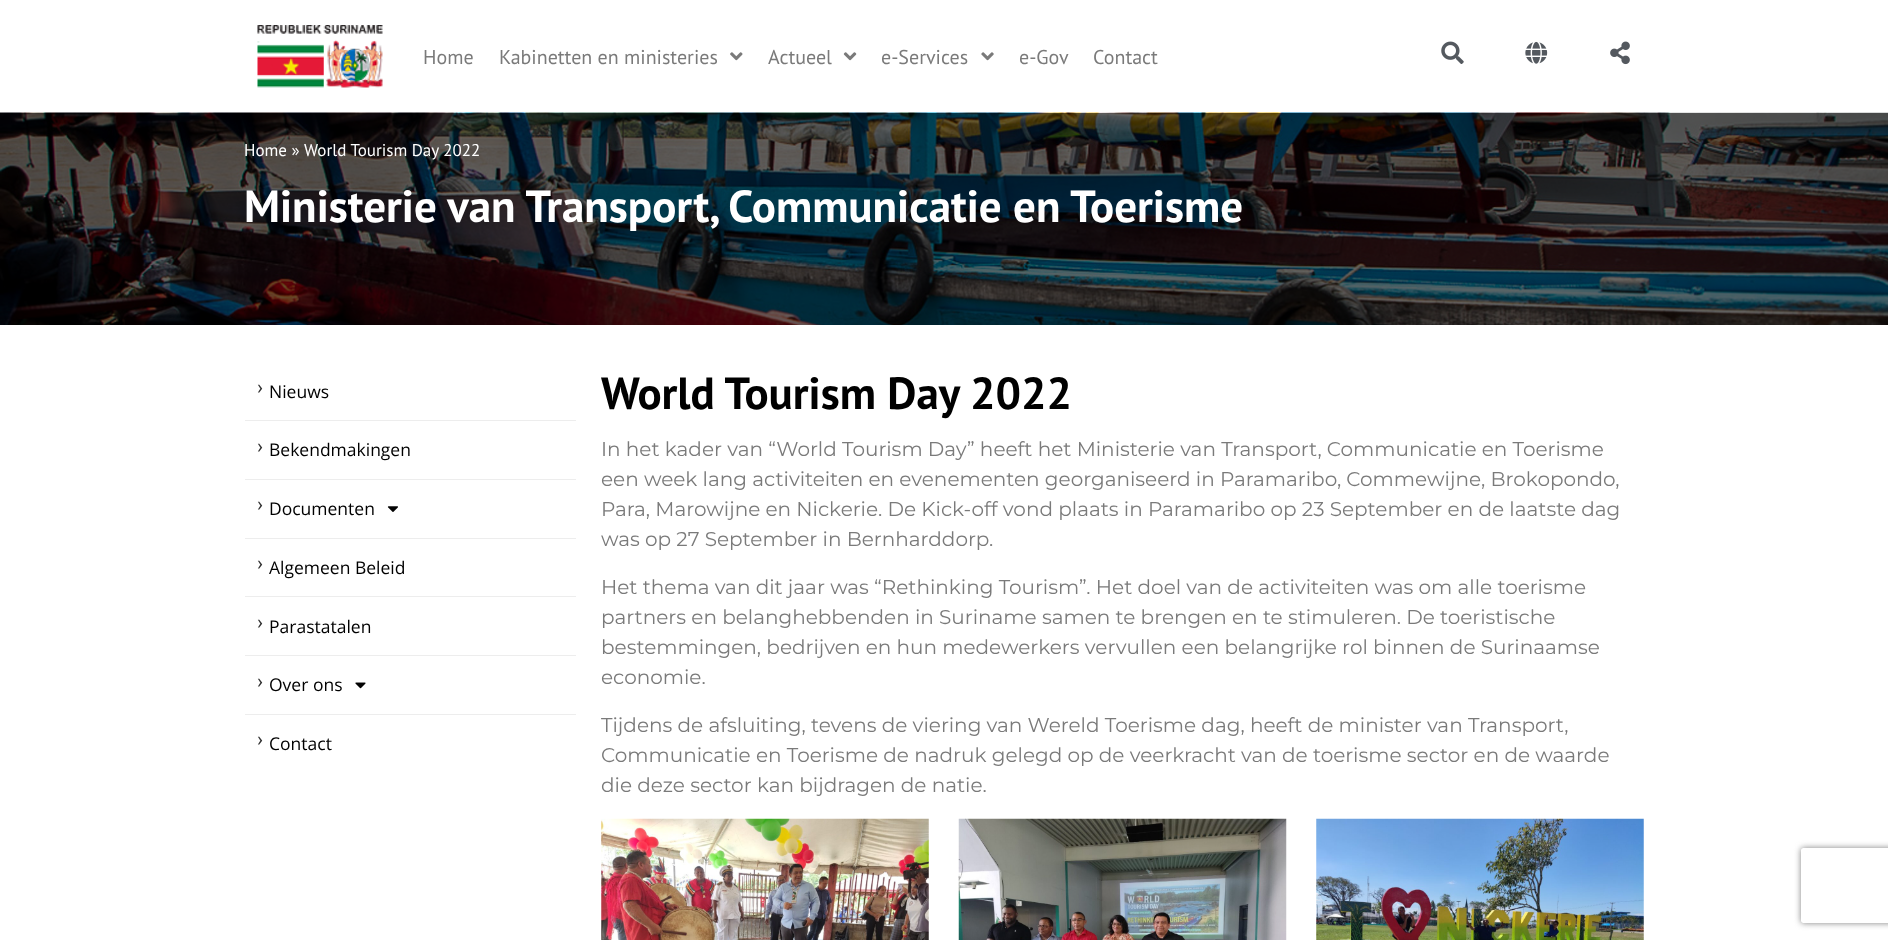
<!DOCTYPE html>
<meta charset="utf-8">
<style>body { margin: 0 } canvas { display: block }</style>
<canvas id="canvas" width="1888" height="940"></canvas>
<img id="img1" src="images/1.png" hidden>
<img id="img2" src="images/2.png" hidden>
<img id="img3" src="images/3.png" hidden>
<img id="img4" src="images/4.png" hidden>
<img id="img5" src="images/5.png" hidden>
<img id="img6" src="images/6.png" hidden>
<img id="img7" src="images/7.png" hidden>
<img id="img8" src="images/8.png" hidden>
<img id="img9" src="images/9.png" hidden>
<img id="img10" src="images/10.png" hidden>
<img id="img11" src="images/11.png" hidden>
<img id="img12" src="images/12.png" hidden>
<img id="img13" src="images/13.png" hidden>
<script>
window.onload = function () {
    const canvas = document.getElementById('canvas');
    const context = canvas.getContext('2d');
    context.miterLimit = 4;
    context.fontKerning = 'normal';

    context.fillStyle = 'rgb(255, 255, 255)';
    context.fillRect(0, 0, 1888, 940);
    context.drawImage(document.getElementById('img1'), 257, 25, 126, 63);
    context.drawImage(document.getElementById('img2'), 730, 52, 13, 9);
    context.drawImage(document.getElementById('img3'), 843, 52, 14, 9);
    context.drawImage(document.getElementById('img4'), 981, 52, 13, 9);
    context.drawImage(document.getElementById('img5'), 1441, 41, 23, 23);
    context.drawImage(document.getElementById('img6'), 1525, 41, 23, 23);
    context.drawImage(document.getElementById('img7'), 1610, 41, 20, 24);
    context.drawImage(document.getElementById('img8'), 0, 112, 1888, 213);
    context.fillStyle = 'rgb(237, 237, 237)';
    context.fillRect(245, 420, 331, 1);
    context.fillRect(245, 479, 331, 1);
    context.fillRect(245, 538, 331, 1);
    context.drawImage(document.getElementById('img9'), 387, 506, 11, 6);
    context.fillRect(245, 596, 331, 1);
    context.fillRect(245, 655, 331, 1);
    context.fillRect(245, 714, 331, 1);
    context.drawImage(document.getElementById('img10'), 355, 682, 11, 7);
    context.drawImage(document.getElementById('img11'), 601, 818, 328, 122);
    context.drawImage(document.getElementById('img12'), 958, 818, 329, 122);
    context.drawImage(document.getElementById('img13'), 1316, 818, 328, 122);
    context.save();
    context.beginPath();
    context.moveTo(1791, 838);
    context.lineTo(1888, 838);
    context.lineTo(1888, 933);
    context.lineTo(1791, 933);
    context.closePath();
    context.moveTo(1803.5, 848);
    context.lineTo(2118.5, 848);
    context.bezierCurveTo(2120, 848, 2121, 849, 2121, 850.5);
    context.lineTo(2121, 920.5);
    context.bezierCurveTo(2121, 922, 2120, 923, 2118.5, 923);
    context.lineTo(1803.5, 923);
    context.bezierCurveTo(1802, 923, 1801, 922, 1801, 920.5);
    context.lineTo(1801, 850.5);
    context.bezierCurveTo(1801, 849, 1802, 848, 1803.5, 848);
    context.closePath();
    context.clip('evenodd');
    context.fillStyle = 'rgb(128, 128, 128)';
    context.filter = 'blur(3px)';
    context.beginPath();
    context.roundRect(1801, 848, 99, 75, 2.5);
    context.fill();
    context.filter = 'none';
    context.restore();
    context.font = '20px PT Sans';
    context.fillStyle = 'rgb(122, 122, 122)';
    context.fillText('Home', 423, 64);
    context.fillText('Kabinetten en ministeries', 499, 64);
    context.fillText('Actueel', 768, 64);
    context.fillText('e-Services', 881, 64);
    context.fillText('e-Gov', 1019, 64);
    context.fillText('Contact', 1093, 64);
    context.font = '17px PT Sans';
    context.fillStyle = 'rgb(255, 255, 255)';
    context.fillText('Home »', 244, 156);
    context.fillText('World Tourism Day 2022', 304, 156);
    context.font = 'bold 45px PT Sans';
    context.fillText('Ministerie van Transport, Communicatie en Toerisme', 244, 222);
    context.font = '20px Roboto';
    context.fillStyle = 'rgb(51, 51, 51)';
    context.fillText('›', 257, 394);
    context.font = '17.5px Open Sans';
    context.fillStyle = 'rgb(0, 0, 0)';
    context.fillText('Nieuws', 269, 398);
    context.font = '20px Roboto';
    context.fillStyle = 'rgb(51, 51, 51)';
    context.fillText('›', 257, 453);
    context.font = '17.5px Open Sans';
    context.fillStyle = 'rgb(0, 0, 0)';
    context.fillText('Bekendmakingen', 269, 456);
    context.font = '20px Roboto';
    context.fillStyle = 'rgb(51, 51, 51)';
    context.fillText('›', 257, 511);
    context.font = '17.5px Open Sans';
    context.fillStyle = 'rgb(0, 0, 0)';
    context.fillText('Documenten', 269, 515);
    context.font = '20px Roboto';
    context.fillStyle = 'rgb(51, 51, 51)';
    context.fillText('›', 257, 570);
    context.font = '17.5px Open Sans';
    context.fillStyle = 'rgb(0, 0, 0)';
    context.fillText('Algemeen Beleid', 269, 574);
    context.font = '20px Roboto';
    context.fillStyle = 'rgb(51, 51, 51)';
    context.fillText('›', 257, 629);
    context.font = '17.5px Open Sans';
    context.fillStyle = 'rgb(0, 0, 0)';
    context.fillText('Parastatalen', 269, 633);
    context.font = '20px Roboto';
    context.fillStyle = 'rgb(51, 51, 51)';
    context.fillText('›', 257, 688);
    context.font = '17.5px Open Sans';
    context.fillStyle = 'rgb(0, 0, 0)';
    context.fillText('Over ons', 269, 691);
    context.font = '20px Roboto';
    context.fillStyle = 'rgb(51, 51, 51)';
    context.fillText('›', 257, 746);
    context.font = '17.5px Open Sans';
    context.fillStyle = 'rgb(0, 0, 0)';
    context.fillText('Contact', 269, 750);
    context.font = 'bold 45px PT Sans';
    context.fillText('World Tourism Day 2022', 601, 409);
    context.font = '20px Montserrat';
    context.fillStyle = 'rgb(122, 122, 122)';
    context.fillText('In het kader van “World Tourism Day” heeft het Ministerie van Transport, Communicatie en Toerisme', 601, 456);
    context.fillText('een week lang activiteiten en evenementen georganiseerd in Paramaribo, Commewijne, Brokopondo,', 601, 486);
    context.fillText('Para, Marowijne en Nickerie. De Kick-off vond plaats in Paramaribo op 23 September en de laatste dag', 601, 516);
    context.fillText('was op 27 September in Bernharddorp.', 601, 546);
    context.fillText('Het thema van dit jaar was “Rethinking Tourism”. Het doel van de activiteiten was om alle toerisme', 601, 594);
    context.fillText('partners en belanghebbenden in Suriname samen te brengen en te stimuleren. De toeristische', 601, 624);
    context.fillText('bestemmingen, bedrijven en hun medewerkers vervullen een belangrijke rol binnen de Surinaamse', 601, 654);
    context.fillText('economie.', 601, 684);
    context.fillText('Tijdens de afsluiting, tevens de viering van Wereld Toerisme dag, heeft de minister van Transport,', 601, 732);
    context.fillText('Communicatie en Toerisme de nadruk gelegd op de veerkracht van de toerisme sector en de waarde', 601, 762);
    context.fillText('die deze sector kan bijdragen de natie.', 601, 792);
};
</script>
